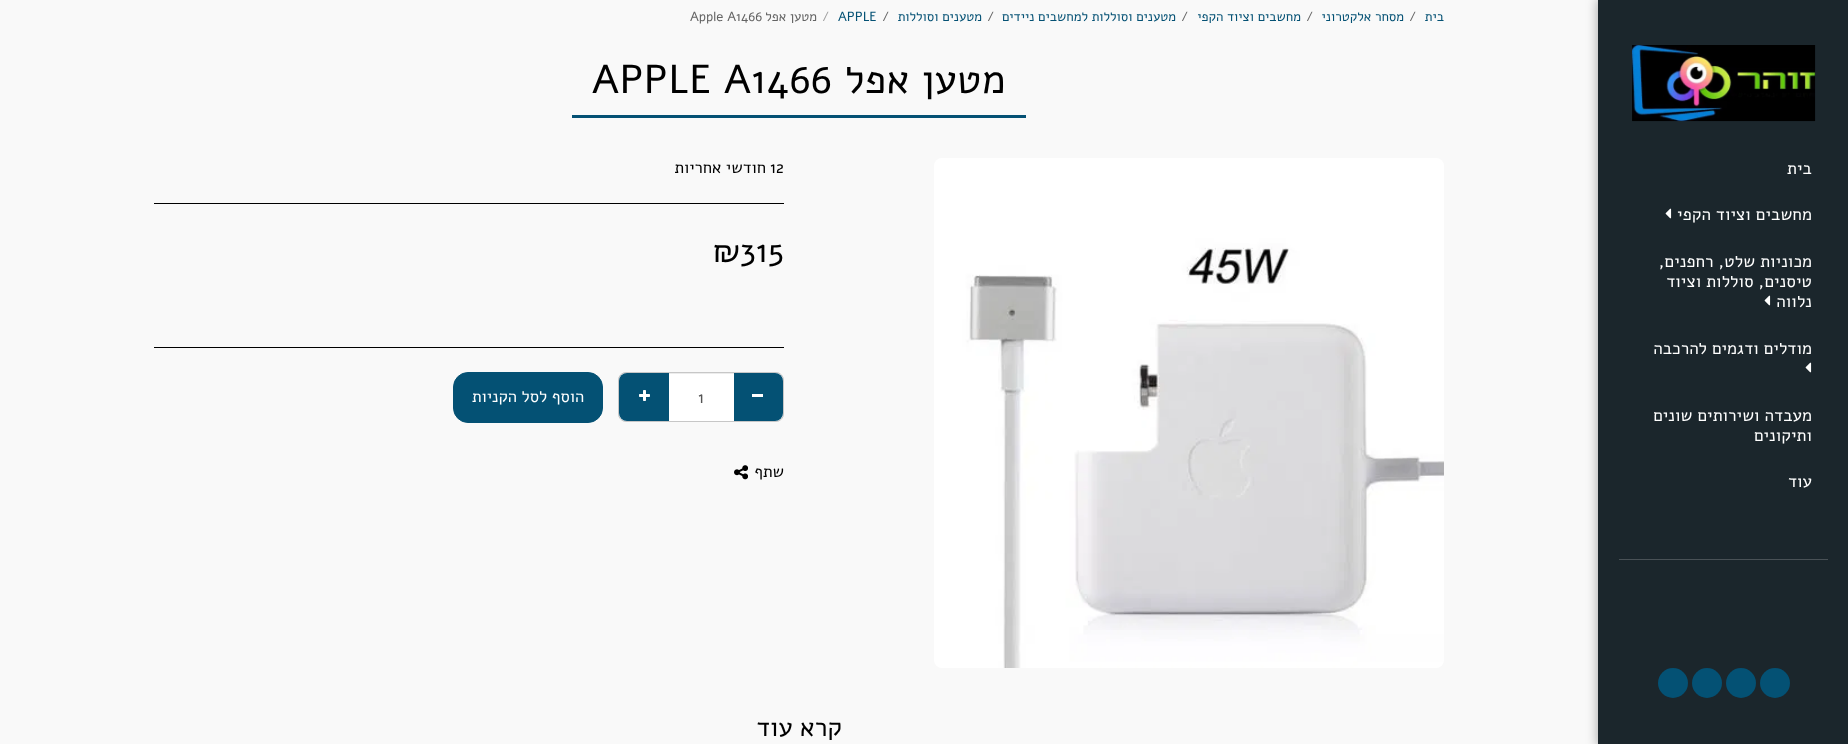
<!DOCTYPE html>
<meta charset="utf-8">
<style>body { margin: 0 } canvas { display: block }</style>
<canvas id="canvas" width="1848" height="744"></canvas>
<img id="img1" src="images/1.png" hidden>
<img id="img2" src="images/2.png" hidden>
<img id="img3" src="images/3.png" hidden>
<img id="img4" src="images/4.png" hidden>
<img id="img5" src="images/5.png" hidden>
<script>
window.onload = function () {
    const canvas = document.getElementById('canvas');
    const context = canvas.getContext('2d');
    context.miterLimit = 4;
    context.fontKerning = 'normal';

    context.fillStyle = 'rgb(249, 249, 249)';
    context.fillRect(0, 0, 1848, 744);
    context.fillStyle = 'rgba(0, 0, 0, 0.35)';
    context.filter = 'blur(6px)';
    context.beginPath();
    context.rect(1598, -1, 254, 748);
    context.fill();
    context.filter = 'none';
    context.fillStyle = 'rgb(27, 38, 44)';
    context.fillRect(1598, 0, 250, 744);
    context.drawImage(document.getElementById('img1'), 1632, 45, 184, 77);
    context.drawImage(document.getElementById('img2'), 1665, 208, 7, 11);
    context.drawImage(document.getElementById('img2'), 1764, 295, 7, 11);
    context.drawImage(document.getElementById('img2'), 1805, 362, 7, 11);
    context.fillStyle = 'rgb(73, 81, 86)';
    context.fillRect(1619, 559, 209, 1);
    context.fillStyle = 'rgb(4, 81, 116)';
    context.beginPath();
    context.arc(1775, 683, 15, 0, 2 * Math.PI);
    context.fill();
    context.beginPath();
    context.arc(1741, 683, 15, 0, 2 * Math.PI);
    context.fill();
    context.beginPath();
    context.arc(1707, 683, 15, 0, 2 * Math.PI);
    context.fill();
    context.beginPath();
    context.arc(1673, 683, 15, 0, 2 * Math.PI);
    context.fill();
    context.fillRect(572, 115, 454, 3);
    context.drawImage(document.getElementById('img3'), 934, 158, 510, 510);
    context.fillStyle = 'rgb(0, 0, 0)';
    context.fillRect(154, 203, 630, 1);
    context.fillRect(154, 347, 630, 1);
    context.beginPath();
    context.roundRect(618.5, 372.5, 165, 49, 7.5);
    context.strokeStyle = 'rgb(199, 199, 199)';
    context.stroke();
    context.fillStyle = 'rgb(4, 81, 116)';
    context.beginPath();
    context.roundRect(733, 373, 50, 48, [0, 8, 8, 0]);
    context.fill();
    context.fillStyle = 'rgb(255, 255, 255)';
    context.fillRect(752, 394, 11, 3);
    context.fillStyle = 'rgb(4, 81, 116)';
    context.beginPath();
    context.roundRect(619, 373, 51, 48, [8, 0, 0, 8]);
    context.fill();
    context.fillStyle = 'rgb(255, 255, 255)';
    context.fillRect(669, 374, 65, 47);
    context.fillStyle = 'rgb(236, 236, 236)';
    context.fillRect(669, 373, 65, 1);
    context.drawImage(document.getElementById('img4'), 639, 390, 11, 11);
    context.fillStyle = 'rgb(4, 81, 116)';
    context.beginPath();
    context.roundRect(453.5, 372.5, 149, 50, 14.5);
    context.fill();
    context.strokeStyle = 'rgb(4, 81, 116)';
    context.stroke();
    context.drawImage(document.getElementById('img5'), 734, 465, 14, 15);
    context.letterSpacing = '0.1px';
    context.direction = 'rtl';
    context.font = '17px Alef';
    context.fillStyle = 'rgb(255, 255, 255)';
    context.fillText('בית', 1812, 174);
    context.fillText('מחשבים וציוד הקפי', 1812, 220);
    context.fillText('מכוניות שלט, רחפנים,', 1812, 267);
    context.fillText('טיסנים, סוללות וציוד', 1812, 287);
    context.fillText('נלווה', 1812, 307);
    context.fillText('מודלים ודגמים להרכבה', 1812, 354);
    context.fillText('מעבדה ושירותים שונים', 1812, 421);
    context.fillText('ותיקונים', 1812, 441);
    context.fillText('עוד', 1812, 487);
    context.letterSpacing = '0px';
    context.font = '13.25px Alef';
    context.fillStyle = 'rgb(4, 81, 116)';
    context.fillText('בית', 1444, 21);
    context.direction = 'ltr';
    context.fillStyle = 'rgb(100, 100, 100)';
    context.fillText('/', 1409, 21);
    context.direction = 'rtl';
    context.fillStyle = 'rgb(4, 81, 116)';
    context.fillText('מסחר אלקטרוני', 1404, 21);
    context.direction = 'ltr';
    context.fillStyle = 'rgb(100, 100, 100)';
    context.fillText('/', 1306, 21);
    context.direction = 'rtl';
    context.fillStyle = 'rgb(4, 81, 116)';
    context.fillText('מחשבים וציוד הקפי', 1301, 21);
    context.direction = 'ltr';
    context.fillStyle = 'rgb(100, 100, 100)';
    context.fillText('/', 1181, 21);
    context.direction = 'rtl';
    context.fillStyle = 'rgb(4, 81, 116)';
    context.fillText('מטענים וסוללות למחשבים ניידים', 1176, 21);
    context.direction = 'ltr';
    context.fillStyle = 'rgb(100, 100, 100)';
    context.fillText('/', 987, 21);
    context.direction = 'rtl';
    context.fillStyle = 'rgb(4, 81, 116)';
    context.fillText('מטענים וסוללות', 982, 21);
    context.direction = 'ltr';
    context.fillStyle = 'rgb(100, 100, 100)';
    context.fillText('/', 882, 21);
    context.fillStyle = 'rgb(4, 81, 116)';
    context.fillText('APPLE', 838, 21);
    context.fillStyle = 'rgb(159, 159, 159)';
    context.fillText('/', 822, 21);
    context.direction = 'rtl';
    context.fillStyle = 'rgb(100, 100, 100)';
    context.fillText('מטען אפל', 817, 21);
    context.direction = 'ltr';
    context.fillText('Apple A1466', 690, 21);
    context.letterSpacing = '0.5px';
    context.direction = 'rtl';
    context.font = '40.25px Alef';
    context.fillStyle = 'rgb(0, 0, 0)';
    context.fillText('מטען אפל', 1006, 93);
    context.direction = 'ltr';
    context.fillText('APPLE A1466', 592, 93);
    context.letterSpacing = '0px';
    context.font = '16.5px Alef';
    context.fillText('12', 770, 173);
    context.direction = 'rtl';
    context.fillText('חודשי אחריות', 766, 173);
    context.direction = 'ltr';
    context.font = '33px Alef';
    context.fillText('₪315', 713, 262);
    context.font = '16.5px Alef';
    context.fillStyle = 'rgb(85, 85, 85)';
    context.fillText('1', 698, 403);
    context.direction = 'rtl';
    context.fillStyle = 'rgb(255, 255, 255)';
    context.fillText('הוסף לסל הקניות', 584, 402);
    context.fillStyle = 'rgb(0, 0, 0)';
    context.fillText('שתף', 784, 477);
    context.font = '26px Alef';
    context.fillText('קרא עוד', 842, 736);
};
</script>
